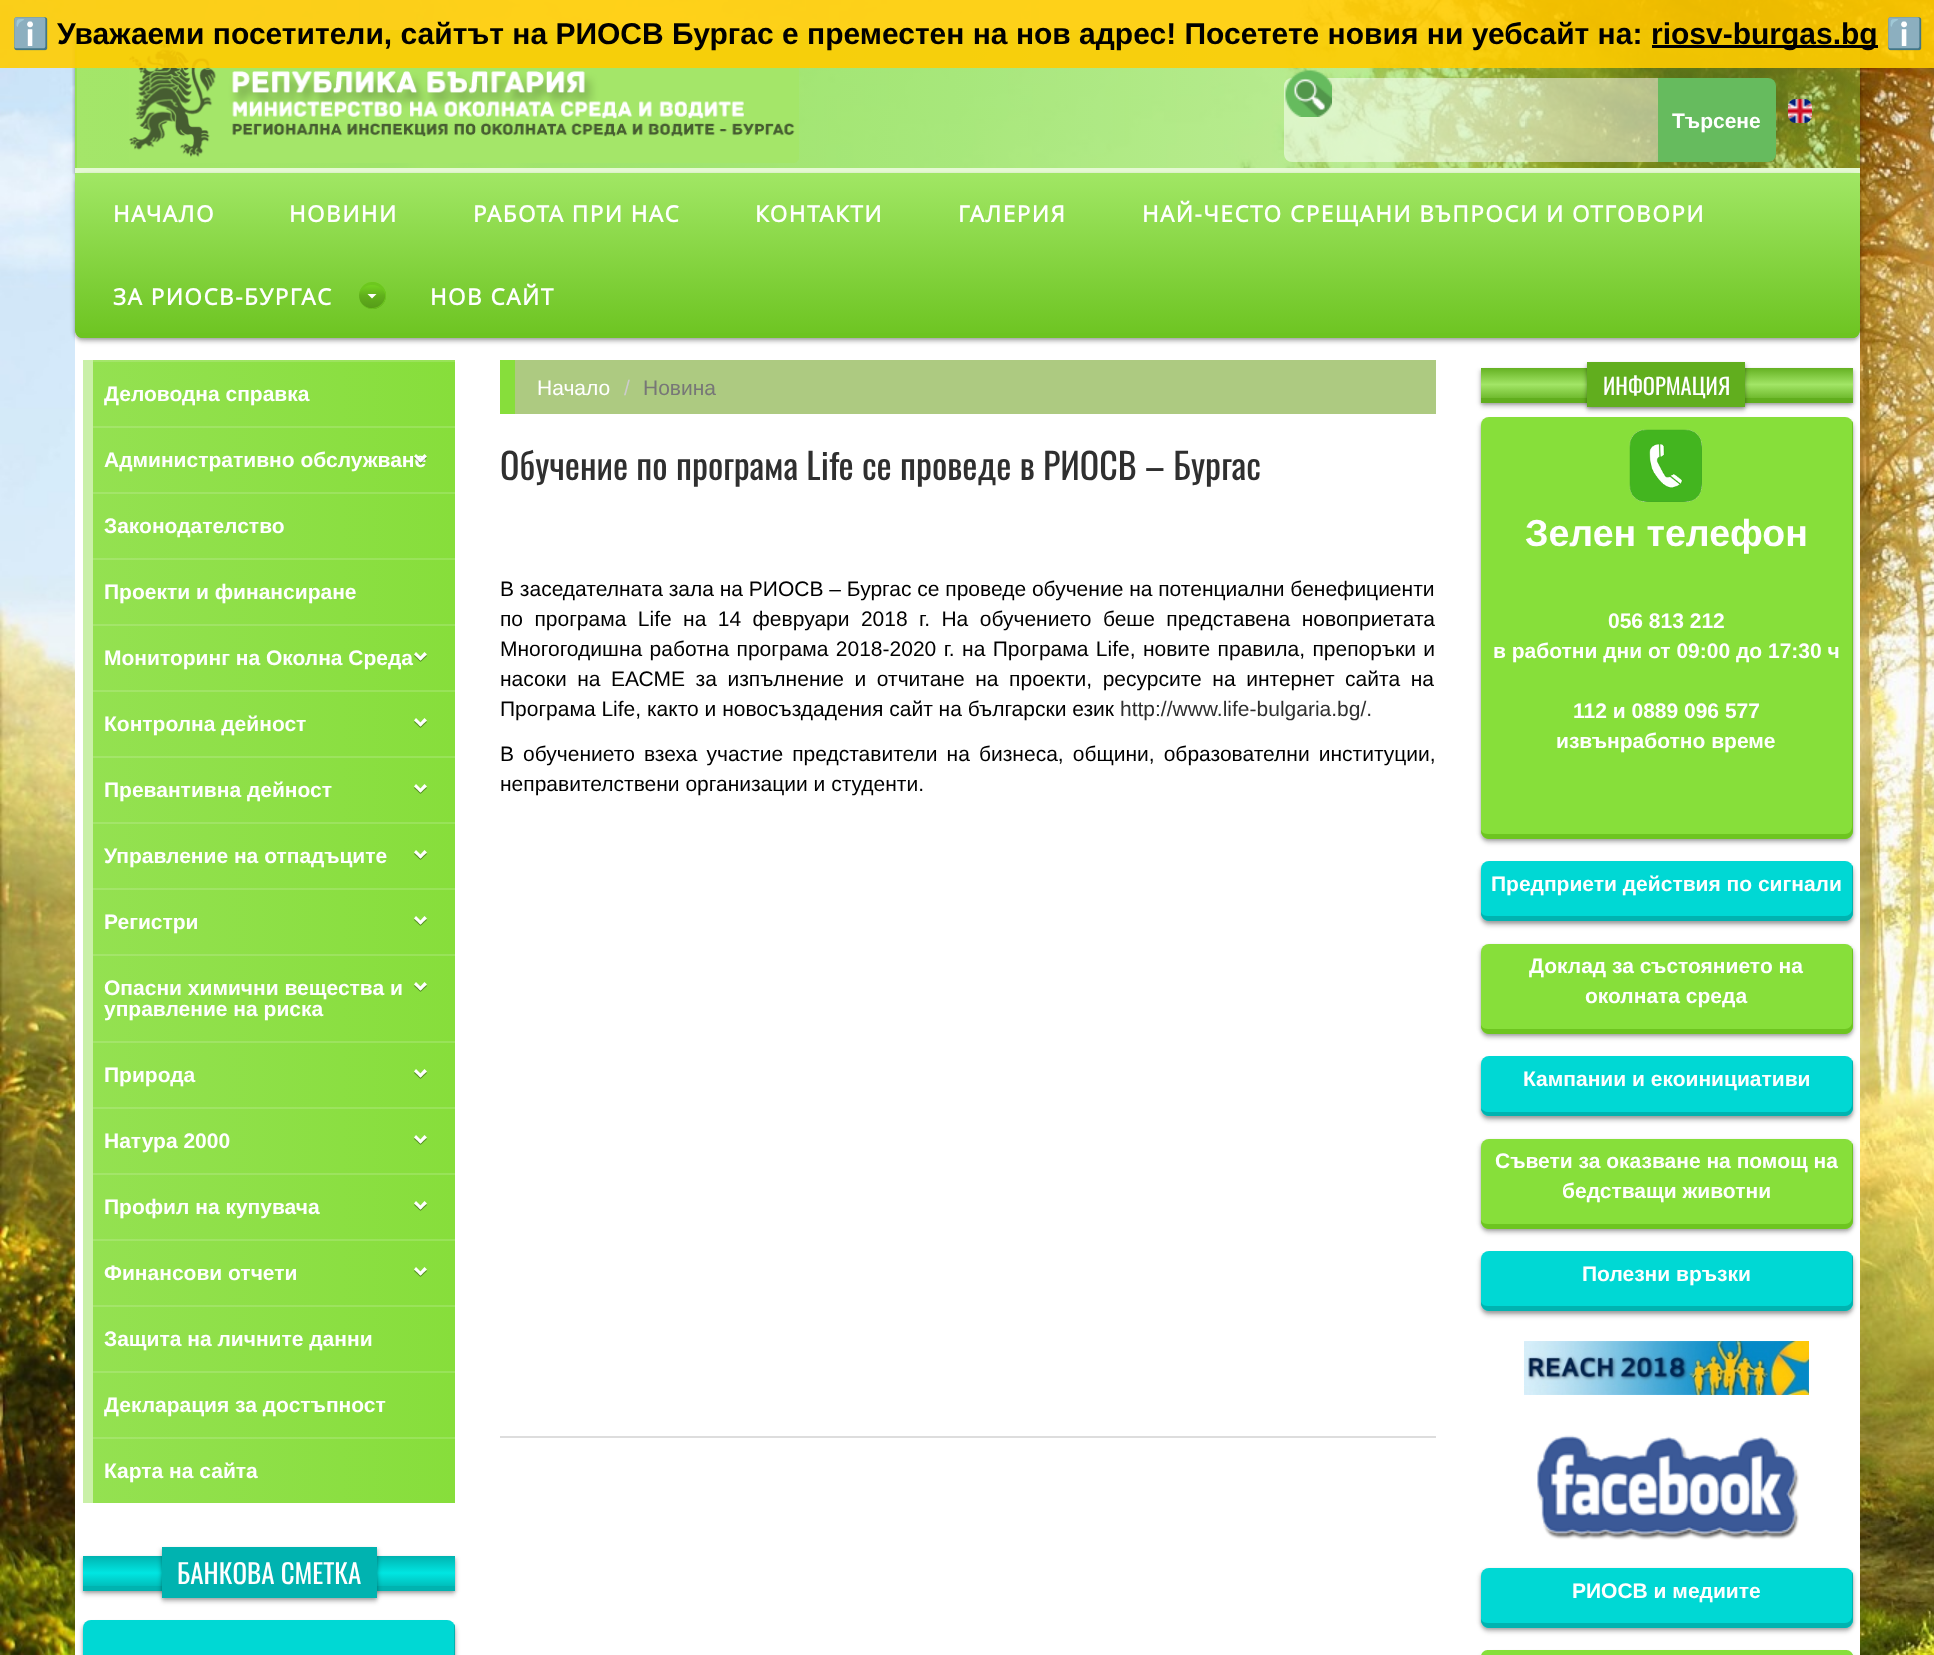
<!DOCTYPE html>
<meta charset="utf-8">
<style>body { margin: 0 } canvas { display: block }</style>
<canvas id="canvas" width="1934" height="1655"></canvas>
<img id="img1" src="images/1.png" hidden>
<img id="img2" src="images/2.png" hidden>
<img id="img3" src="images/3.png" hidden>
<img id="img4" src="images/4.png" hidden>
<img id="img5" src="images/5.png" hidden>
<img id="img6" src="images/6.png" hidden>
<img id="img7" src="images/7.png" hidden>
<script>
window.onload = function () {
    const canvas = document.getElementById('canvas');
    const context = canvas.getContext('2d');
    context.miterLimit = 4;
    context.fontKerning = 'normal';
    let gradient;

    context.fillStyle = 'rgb(255, 255, 255)';
    context.fillRect(0, 0, 1934, 1655);
    context.drawImage(document.getElementById('img1'), 0, 0, 1934, 1655);
    context.save();
    context.beginPath();
    context.rect(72, 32, 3, 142);
    context.clip();
    context.fillStyle = 'rgba(0, 0, 0, 0.05)';
    context.filter = 'blur(1.5px)';
    context.beginPath();
    context.rect(72, 32, 1785, 142);
    context.fill();
    context.filter = 'none';
    context.restore();
    context.save();
    context.beginPath();
    context.moveTo(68, 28);
    context.lineTo(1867, 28);
    context.lineTo(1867, 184);
    context.lineTo(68, 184);
    context.closePath();
    context.moveTo(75, 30);
    context.lineTo(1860, 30);
    context.lineTo(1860, 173);
    context.lineTo(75, 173);
    context.closePath();
    context.clip('evenodd');
    context.fillStyle = 'rgba(0, 0, 0, 0.17)';
    context.filter = 'blur(2px)';
    context.beginPath();
    context.rect(75, 35, 1785, 142);
    context.fill();
    context.filter = 'none';
    context.restore();
    context.save();
    context.beginPath();
    context.moveTo(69, 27);
    context.lineTo(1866, 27);
    context.lineTo(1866, 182);
    context.lineTo(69, 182);
    context.closePath();
    context.moveTo(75, 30);
    context.lineTo(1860, 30);
    context.lineTo(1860, 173);
    context.lineTo(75, 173);
    context.closePath();
    context.clip('evenodd');
    context.fillStyle = 'rgba(0, 0, 0, 0.06)';
    context.filter = 'blur(1.5px)';
    context.beginPath();
    context.rect(75, 33, 1785, 143);
    context.fill();
    context.filter = 'none';
    context.restore();
    context.save();
    context.beginPath();
    context.moveTo(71, 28);
    context.lineTo(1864, 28);
    context.lineTo(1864, 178);
    context.lineTo(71, 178);
    context.closePath();
    context.moveTo(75, 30);
    context.lineTo(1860, 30);
    context.lineTo(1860, 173);
    context.lineTo(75, 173);
    context.closePath();
    context.clip('evenodd');
    context.fillStyle = 'rgba(0, 0, 0, 0.1)';
    context.filter = 'blur(1px)';
    context.beginPath();
    context.rect(75, 32, 1785, 142);
    context.fill();
    context.filter = 'none';
    context.restore();
    gradient = context.createLinearGradient(1860, 101, 75, 101);
    gradient.addColorStop(0, 'rgba(135, 222, 59, 0.4)');
    gradient.addColorStop(0.5, 'rgba(121, 218, 37, 0.6)');
    gradient.addColorStop(1, 'rgb(164, 230, 105)');
    context.fillStyle = gradient;
    context.fillRect(77, 30, 1783, 138);
    context.fillStyle = 'rgb(148, 225, 81)';
    context.fillRect(75, 30, 2, 143);
    context.drawImage(document.getElementById('img2'), 129, 38, 670, 125);
    context.fillStyle = 'rgba(255, 204, 0, 0.9)';
    context.fillRect(0, 0, 1934, 68);
    context.fillStyle = 'rgb(0, 0, 0)';
    context.fillRect(1652, 45, 226, 3);
    context.fillStyle = 'rgb(228, 249, 210)';
    context.fillRect(75, 168, 1785, 5);
    context.fillStyle = 'rgba(255, 255, 255, 0.5)';
    context.beginPath();
    context.roundRect(1284, 78, 374, 84, [8, 0, 0, 8]);
    context.fill();
    context.drawImage(document.getElementById('img3'), 1285, 70, 47, 47);
    context.fillStyle = 'rgb(102, 187, 94)';
    context.beginPath();
    context.roundRect(1658, 78, 118, 84, [0, 8, 8, 0]);
    context.fill();
    context.drawImage(document.getElementById('img4'), 1788, 99, 24, 24);
    context.fillStyle = 'rgb(255, 255, 255)';
    context.fillRect(75, 330, 1785, 1325);
    context.fillStyle = 'rgba(0, 0, 0, 0.05)';
    context.filter = 'blur(1.5px)';
    context.beginPath();
    context.roundRect(72, 174, 1785, 165, 8);
    context.fill();
    context.filter = 'none';
    context.filter = 'blur(1.5px)';
    context.beginPath();
    context.roundRect(78, 174, 1785, 165, 8);
    context.fill();
    context.filter = 'none';
    context.fillStyle = 'rgba(0, 0, 0, 0.17)';
    context.filter = 'blur(2px)';
    context.beginPath();
    context.roundRect(75, 177, 1785, 165, 8);
    context.fill();
    context.filter = 'none';
    context.fillStyle = 'rgba(0, 0, 0, 0.06)';
    context.filter = 'blur(1.5px)';
    context.beginPath();
    context.roundRect(75, 176, 1785, 165, 8);
    context.fill();
    context.filter = 'none';
    context.fillStyle = 'rgba(0, 0, 0, 0.1)';
    context.filter = 'blur(1px)';
    context.beginPath();
    context.roundRect(75, 174, 1785, 165, 8);
    context.fill();
    context.filter = 'none';
    gradient = context.createLinearGradient(968, 172, 968, 338);
    gradient.addColorStop(0, 'rgb(161, 231, 101)');
    gradient.addColorStop(1, 'rgb(109, 196, 33)');
    context.fillStyle = gradient;
    context.beginPath();
    context.roundRect(75, 173, 1785, 165, [0, 0, 8, 8]);
    context.fill();
    context.fillStyle = 'rgb(109, 196, 33)';
    context.beginPath();
    context.moveTo(75, 326);
    context.bezierCurveTo(75, 332, 76, 338, 83, 338);
    context.lineTo(1852, 338);
    context.bezierCurveTo(1859, 338, 1860, 332, 1860, 326);
    context.bezierCurveTo(1860, 330, 1857, 333, 1852, 333);
    context.lineTo(82, 333);
    context.bezierCurveTo(78, 333, 75, 330, 75, 326);
    context.closePath();
    context.fill();
    gradient = context.createLinearGradient(386, 282, 386, 336);
    gradient.addColorStop(0, 'rgb(121, 221, 34)');
    gradient.addColorStop(0.25, 'rgb(97, 176, 28)');
    gradient.addColorStop(0.5, 'rgb(85, 154, 24)');
    gradient.addColorStop(0.75, 'rgb(97, 176, 28)');
    gradient.addColorStop(1, 'rgb(109, 199, 31)');
    context.fillStyle = gradient;
    context.beginPath();
    context.arc(372.5, 295.5, 13.5, 0, 2 * Math.PI);
    context.fill();
    context.fillStyle = 'rgb(109, 199, 31)';
    context.beginPath();
    context.moveTo(372, 285);
    context.bezierCurveTo(381.5, 285, 386, 292, 385.5, 299);
    context.bezierCurveTo(389, 286.5, 373.5, 276.5, 363.5, 285.5);
    context.bezierCurveTo(361, 288, 359.5, 291, 359, 294.5);
    context.bezierCurveTo(360.5, 289.5, 365, 285, 372, 285);
    context.closePath();
    context.fill();
    context.beginPath();
    context.moveTo(360.5, 301.5);
    context.bezierCurveTo(368, 316.5, 391, 306.5, 385, 291);
    context.bezierCurveTo(388.5, 307, 368, 314.5, 360.5, 301.5);
    context.closePath();
    context.fill();
    context.fillStyle = 'rgb(255, 255, 255)';
    context.beginPath();
    context.moveTo(367.5, 294);
    context.lineTo(376.5, 294);
    context.lineTo(372, 298.5);
    context.closePath();
    context.fill();
    context.fillStyle = 'rgb(202, 240, 168)';
    context.fillRect(83, 360, 10, 1143);
    gradient = context.createLinearGradient(93, 393, 455, 393);
    gradient.addColorStop(0, 'rgb(148, 225, 81)');
    gradient.addColorStop(1, 'rgb(135, 222, 59)');
    context.fillStyle = gradient;
    context.fillRect(93, 360, 362, 66);
    context.fillStyle = 'rgba(255, 255, 255, 0.15)';
    context.fillRect(93, 360, 362, 2);
    gradient = context.createLinearGradient(93, 459, 455, 459);
    gradient.addColorStop(0, 'rgb(148, 225, 81)');
    gradient.addColorStop(1, 'rgb(135, 222, 59)');
    context.fillStyle = gradient;
    context.fillRect(93, 426, 362, 66);
    context.fillStyle = 'rgba(255, 255, 255, 0.15)';
    context.fillRect(93, 426, 362, 2);
    gradient = context.createLinearGradient(93, 525, 455, 525);
    gradient.addColorStop(0, 'rgb(148, 225, 81)');
    gradient.addColorStop(1, 'rgb(135, 222, 59)');
    context.fillStyle = gradient;
    context.fillRect(93, 492, 362, 66);
    context.fillStyle = 'rgba(255, 255, 255, 0.15)';
    context.fillRect(93, 492, 362, 2);
    gradient = context.createLinearGradient(93, 591, 455, 591);
    gradient.addColorStop(0, 'rgb(148, 225, 81)');
    gradient.addColorStop(1, 'rgb(135, 222, 59)');
    context.fillStyle = gradient;
    context.fillRect(93, 558, 362, 66);
    context.fillStyle = 'rgba(255, 255, 255, 0.15)';
    context.fillRect(93, 558, 362, 2);
    gradient = context.createLinearGradient(93, 657, 455, 657);
    gradient.addColorStop(0, 'rgb(148, 225, 81)');
    gradient.addColorStop(1, 'rgb(135, 222, 59)');
    context.fillStyle = gradient;
    context.fillRect(93, 624, 362, 66);
    context.fillStyle = 'rgba(255, 255, 255, 0.15)';
    context.fillRect(93, 624, 362, 2);
    context.fillStyle = 'rgb(88, 144, 40)';
    context.beginPath();
    context.moveTo(420.5, 662);
    context.lineTo(414, 656);
    context.lineTo(416, 653.5);
    context.lineTo(420.5, 658);
    context.closePath();
    context.fill();
    context.fillStyle = 'rgba(0, 0, 0, 0.35)';
    context.beginPath();
    context.moveTo(427, 656);
    context.lineTo(420.5, 662);
    context.lineTo(420.5, 658);
    context.lineTo(424.5, 653.5);
    context.closePath();
    context.fill();
    context.fillStyle = 'rgb(255, 255, 255)';
    context.beginPath();
    context.moveTo(420.5, 660.5);
    context.lineTo(414, 654.5);
    context.lineTo(416, 652);
    context.lineTo(422.5, 658.5);
    context.closePath();
    context.fill();
    context.beginPath();
    context.moveTo(420.5, 660.5);
    context.lineTo(418.5, 658.5);
    context.lineTo(424.5, 652);
    context.lineTo(427, 654.5);
    context.closePath();
    context.fill();
    gradient = context.createLinearGradient(93, 723, 455, 723);
    gradient.addColorStop(0, 'rgb(148, 225, 81)');
    gradient.addColorStop(1, 'rgb(135, 222, 59)');
    context.fillStyle = gradient;
    context.fillRect(93, 690, 362, 66);
    context.fillStyle = 'rgba(255, 255, 255, 0.15)';
    context.fillRect(93, 690, 362, 2);
    context.fillStyle = 'rgb(88, 144, 40)';
    context.beginPath();
    context.moveTo(420.5, 728);
    context.lineTo(414, 722);
    context.lineTo(416, 719.5);
    context.lineTo(420.5, 724);
    context.closePath();
    context.fill();
    context.fillStyle = 'rgba(0, 0, 0, 0.35)';
    context.beginPath();
    context.moveTo(427, 722);
    context.lineTo(420.5, 728);
    context.lineTo(420.5, 724);
    context.lineTo(424.5, 719.5);
    context.closePath();
    context.fill();
    context.fillStyle = 'rgb(255, 255, 255)';
    context.beginPath();
    context.moveTo(420.5, 726.5);
    context.lineTo(414, 720.5);
    context.lineTo(416, 718);
    context.lineTo(422.5, 724.5);
    context.closePath();
    context.fill();
    context.beginPath();
    context.moveTo(420.5, 726.5);
    context.lineTo(418.5, 724.5);
    context.lineTo(424.5, 718);
    context.lineTo(427, 720.5);
    context.closePath();
    context.fill();
    gradient = context.createLinearGradient(93, 789, 455, 789);
    gradient.addColorStop(0, 'rgb(148, 225, 81)');
    gradient.addColorStop(1, 'rgb(135, 222, 59)');
    context.fillStyle = gradient;
    context.fillRect(93, 756, 362, 66);
    context.fillStyle = 'rgba(255, 255, 255, 0.15)';
    context.fillRect(93, 756, 362, 2);
    context.fillStyle = 'rgb(88, 144, 40)';
    context.beginPath();
    context.moveTo(420.5, 794);
    context.lineTo(414, 788);
    context.lineTo(416, 785.5);
    context.lineTo(420.5, 790);
    context.closePath();
    context.fill();
    context.fillStyle = 'rgba(0, 0, 0, 0.35)';
    context.beginPath();
    context.moveTo(427, 788);
    context.lineTo(420.5, 794);
    context.lineTo(420.5, 790);
    context.lineTo(424.5, 785.5);
    context.closePath();
    context.fill();
    context.fillStyle = 'rgb(255, 255, 255)';
    context.beginPath();
    context.moveTo(420.5, 792.5);
    context.lineTo(414, 786.5);
    context.lineTo(416, 784);
    context.lineTo(422.5, 790.5);
    context.closePath();
    context.fill();
    context.beginPath();
    context.moveTo(420.5, 792.5);
    context.lineTo(418.5, 790.5);
    context.lineTo(424.5, 784);
    context.lineTo(427, 786.5);
    context.closePath();
    context.fill();
    gradient = context.createLinearGradient(93, 855, 455, 855);
    gradient.addColorStop(0, 'rgb(148, 225, 81)');
    gradient.addColorStop(1, 'rgb(135, 222, 59)');
    context.fillStyle = gradient;
    context.fillRect(93, 822, 362, 66);
    context.fillStyle = 'rgba(255, 255, 255, 0.15)';
    context.fillRect(93, 822, 362, 2);
    context.fillStyle = 'rgb(88, 144, 40)';
    context.beginPath();
    context.moveTo(420.5, 860);
    context.lineTo(414, 854);
    context.lineTo(416, 851.5);
    context.lineTo(420.5, 856);
    context.closePath();
    context.fill();
    context.fillStyle = 'rgba(0, 0, 0, 0.35)';
    context.beginPath();
    context.moveTo(427, 854);
    context.lineTo(420.5, 860);
    context.lineTo(420.5, 856);
    context.lineTo(424.5, 851.5);
    context.closePath();
    context.fill();
    context.fillStyle = 'rgb(255, 255, 255)';
    context.beginPath();
    context.moveTo(420.5, 858.5);
    context.lineTo(414, 852.5);
    context.lineTo(416, 850);
    context.lineTo(422.5, 856.5);
    context.closePath();
    context.fill();
    context.beginPath();
    context.moveTo(420.5, 858.5);
    context.lineTo(418.5, 856.5);
    context.lineTo(424.5, 850);
    context.lineTo(427, 852.5);
    context.closePath();
    context.fill();
    gradient = context.createLinearGradient(93, 921, 455, 921);
    gradient.addColorStop(0, 'rgb(148, 225, 81)');
    gradient.addColorStop(1, 'rgb(135, 222, 59)');
    context.fillStyle = gradient;
    context.fillRect(93, 888, 362, 66);
    context.fillStyle = 'rgba(255, 255, 255, 0.15)';
    context.fillRect(93, 888, 362, 2);
    context.fillStyle = 'rgb(88, 144, 40)';
    context.beginPath();
    context.moveTo(420.5, 926);
    context.lineTo(414, 920);
    context.lineTo(416, 917.5);
    context.lineTo(420.5, 922);
    context.closePath();
    context.fill();
    context.fillStyle = 'rgba(0, 0, 0, 0.35)';
    context.beginPath();
    context.moveTo(427, 920);
    context.lineTo(420.5, 926);
    context.lineTo(420.5, 922);
    context.lineTo(424.5, 917.5);
    context.closePath();
    context.fill();
    context.fillStyle = 'rgb(255, 255, 255)';
    context.beginPath();
    context.moveTo(420.5, 924.5);
    context.lineTo(414, 918.5);
    context.lineTo(416, 916);
    context.lineTo(422.5, 922.5);
    context.closePath();
    context.fill();
    context.beginPath();
    context.moveTo(420.5, 924.5);
    context.lineTo(418.5, 922.5);
    context.lineTo(424.5, 916);
    context.lineTo(427, 918.5);
    context.closePath();
    context.fill();
    gradient = context.createLinearGradient(93, 998, 455, 998);
    gradient.addColorStop(0, 'rgb(148, 225, 81)');
    gradient.addColorStop(1, 'rgb(135, 222, 59)');
    context.fillStyle = gradient;
    context.fillRect(93, 954, 362, 87);
    context.fillStyle = 'rgba(255, 255, 255, 0.15)';
    context.fillRect(93, 954, 362, 2);
    context.fillStyle = 'rgb(88, 144, 40)';
    context.beginPath();
    context.moveTo(420.5, 992);
    context.lineTo(414, 986);
    context.lineTo(416, 983.5);
    context.lineTo(420.5, 988);
    context.closePath();
    context.fill();
    context.fillStyle = 'rgba(0, 0, 0, 0.35)';
    context.beginPath();
    context.moveTo(427, 986);
    context.lineTo(420.5, 992);
    context.lineTo(420.5, 988);
    context.lineTo(424.5, 983.5);
    context.closePath();
    context.fill();
    context.fillStyle = 'rgb(255, 255, 255)';
    context.beginPath();
    context.moveTo(420.5, 990.5);
    context.lineTo(414, 984.5);
    context.lineTo(416, 982);
    context.lineTo(422.5, 988.5);
    context.closePath();
    context.fill();
    context.beginPath();
    context.moveTo(420.5, 990.5);
    context.lineTo(418.5, 988.5);
    context.lineTo(424.5, 982);
    context.lineTo(427, 984.5);
    context.closePath();
    context.fill();
    gradient = context.createLinearGradient(93, 1074, 455, 1074);
    gradient.addColorStop(0, 'rgb(148, 225, 81)');
    gradient.addColorStop(1, 'rgb(135, 222, 59)');
    context.fillStyle = gradient;
    context.fillRect(93, 1041, 362, 66);
    context.fillStyle = 'rgba(255, 255, 255, 0.15)';
    context.fillRect(93, 1041, 362, 2);
    context.fillStyle = 'rgb(88, 144, 40)';
    context.beginPath();
    context.moveTo(420.5, 1079);
    context.lineTo(414, 1073);
    context.lineTo(416, 1070.5);
    context.lineTo(420.5, 1075);
    context.closePath();
    context.fill();
    context.fillStyle = 'rgba(0, 0, 0, 0.35)';
    context.beginPath();
    context.moveTo(427, 1073);
    context.lineTo(420.5, 1079);
    context.lineTo(420.5, 1075);
    context.lineTo(424.5, 1070.5);
    context.closePath();
    context.fill();
    context.fillStyle = 'rgb(255, 255, 255)';
    context.beginPath();
    context.moveTo(420.5, 1077.5);
    context.lineTo(414, 1071.5);
    context.lineTo(416, 1069);
    context.lineTo(422.5, 1075.5);
    context.closePath();
    context.fill();
    context.beginPath();
    context.moveTo(420.5, 1077.5);
    context.lineTo(418.5, 1075.5);
    context.lineTo(424.5, 1069);
    context.lineTo(427, 1071.5);
    context.closePath();
    context.fill();
    gradient = context.createLinearGradient(93, 1140, 455, 1140);
    gradient.addColorStop(0, 'rgb(148, 225, 81)');
    gradient.addColorStop(1, 'rgb(135, 222, 59)');
    context.fillStyle = gradient;
    context.fillRect(93, 1107, 362, 66);
    context.fillStyle = 'rgba(255, 255, 255, 0.15)';
    context.fillRect(93, 1107, 362, 2);
    context.fillStyle = 'rgb(88, 144, 40)';
    context.beginPath();
    context.moveTo(420.5, 1145);
    context.lineTo(414, 1139);
    context.lineTo(416, 1136.5);
    context.lineTo(420.5, 1141);
    context.closePath();
    context.fill();
    context.fillStyle = 'rgba(0, 0, 0, 0.35)';
    context.beginPath();
    context.moveTo(427, 1139);
    context.lineTo(420.5, 1145);
    context.lineTo(420.5, 1141);
    context.lineTo(424.5, 1136.5);
    context.closePath();
    context.fill();
    context.fillStyle = 'rgb(255, 255, 255)';
    context.beginPath();
    context.moveTo(420.5, 1143.5);
    context.lineTo(414, 1137.5);
    context.lineTo(416, 1135);
    context.lineTo(422.5, 1141.5);
    context.closePath();
    context.fill();
    context.beginPath();
    context.moveTo(420.5, 1143.5);
    context.lineTo(418.5, 1141.5);
    context.lineTo(424.5, 1135);
    context.lineTo(427, 1137.5);
    context.closePath();
    context.fill();
    gradient = context.createLinearGradient(93, 1206, 455, 1206);
    gradient.addColorStop(0, 'rgb(148, 225, 81)');
    gradient.addColorStop(1, 'rgb(135, 222, 59)');
    context.fillStyle = gradient;
    context.fillRect(93, 1173, 362, 66);
    context.fillStyle = 'rgba(255, 255, 255, 0.15)';
    context.fillRect(93, 1173, 362, 2);
    context.fillStyle = 'rgb(88, 144, 40)';
    context.beginPath();
    context.moveTo(420.5, 1211);
    context.lineTo(414, 1205);
    context.lineTo(416, 1202.5);
    context.lineTo(420.5, 1207);
    context.closePath();
    context.fill();
    context.fillStyle = 'rgba(0, 0, 0, 0.35)';
    context.beginPath();
    context.moveTo(427, 1205);
    context.lineTo(420.5, 1211);
    context.lineTo(420.5, 1207);
    context.lineTo(424.5, 1202.5);
    context.closePath();
    context.fill();
    context.fillStyle = 'rgb(255, 255, 255)';
    context.beginPath();
    context.moveTo(420.5, 1209.5);
    context.lineTo(414, 1203.5);
    context.lineTo(416, 1201);
    context.lineTo(422.5, 1207.5);
    context.closePath();
    context.fill();
    context.beginPath();
    context.moveTo(420.5, 1209.5);
    context.lineTo(418.5, 1207.5);
    context.lineTo(424.5, 1201);
    context.lineTo(427, 1203.5);
    context.closePath();
    context.fill();
    gradient = context.createLinearGradient(93, 1272, 455, 1272);
    gradient.addColorStop(0, 'rgb(148, 225, 81)');
    gradient.addColorStop(1, 'rgb(135, 222, 59)');
    context.fillStyle = gradient;
    context.fillRect(93, 1239, 362, 66);
    context.fillStyle = 'rgba(255, 255, 255, 0.15)';
    context.fillRect(93, 1239, 362, 2);
    context.fillStyle = 'rgb(88, 144, 40)';
    context.beginPath();
    context.moveTo(420.5, 1277);
    context.lineTo(414, 1271);
    context.lineTo(416, 1268.5);
    context.lineTo(420.5, 1273);
    context.closePath();
    context.fill();
    context.fillStyle = 'rgba(0, 0, 0, 0.35)';
    context.beginPath();
    context.moveTo(427, 1271);
    context.lineTo(420.5, 1277);
    context.lineTo(420.5, 1273);
    context.lineTo(424.5, 1268.5);
    context.closePath();
    context.fill();
    context.fillStyle = 'rgb(255, 255, 255)';
    context.beginPath();
    context.moveTo(420.5, 1275.5);
    context.lineTo(414, 1269.5);
    context.lineTo(416, 1267);
    context.lineTo(422.5, 1273.5);
    context.closePath();
    context.fill();
    context.beginPath();
    context.moveTo(420.5, 1275.5);
    context.lineTo(418.5, 1273.5);
    context.lineTo(424.5, 1267);
    context.lineTo(427, 1269.5);
    context.closePath();
    context.fill();
    gradient = context.createLinearGradient(93, 1338, 455, 1338);
    gradient.addColorStop(0, 'rgb(148, 225, 81)');
    gradient.addColorStop(1, 'rgb(135, 222, 59)');
    context.fillStyle = gradient;
    context.fillRect(93, 1305, 362, 66);
    context.fillStyle = 'rgba(255, 255, 255, 0.15)';
    context.fillRect(93, 1305, 362, 2);
    gradient = context.createLinearGradient(93, 1404, 455, 1404);
    gradient.addColorStop(0, 'rgb(148, 225, 81)');
    gradient.addColorStop(1, 'rgb(135, 222, 59)');
    context.fillStyle = gradient;
    context.fillRect(93, 1371, 362, 66);
    context.fillStyle = 'rgba(255, 255, 255, 0.15)';
    context.fillRect(93, 1371, 362, 2);
    gradient = context.createLinearGradient(93, 1470, 455, 1470);
    gradient.addColorStop(0, 'rgb(148, 225, 81)');
    gradient.addColorStop(1, 'rgb(135, 222, 59)');
    context.fillStyle = gradient;
    context.fillRect(93, 1437, 362, 66);
    context.fillStyle = 'rgba(255, 255, 255, 0.15)';
    context.fillRect(93, 1437, 362, 2);
    context.fillStyle = 'rgba(0, 0, 0, 0.05)';
    context.filter = 'blur(1.5px)';
    context.beginPath();
    context.rect(80, 1557, 372, 35);
    context.fill();
    context.filter = 'none';
    context.filter = 'blur(1.5px)';
    context.beginPath();
    context.rect(86, 1557, 372, 35);
    context.fill();
    context.filter = 'none';
    context.fillStyle = 'rgba(0, 0, 0, 0.17)';
    context.filter = 'blur(2px)';
    context.beginPath();
    context.rect(83, 1560, 372, 35);
    context.fill();
    context.filter = 'none';
    context.fillStyle = 'rgba(0, 0, 0, 0.06)';
    context.filter = 'blur(1.5px)';
    context.beginPath();
    context.rect(83, 1559, 372, 34);
    context.fill();
    context.filter = 'none';
    context.fillStyle = 'rgba(0, 0, 0, 0.1)';
    context.filter = 'blur(1px)';
    context.beginPath();
    context.rect(83, 1557, 372, 35);
    context.fill();
    context.filter = 'none';
    gradient = context.createLinearGradient(269, 1556, 269, 1590);
    gradient.addColorStop(0, 'rgb(0, 179, 176)');
    gradient.addColorStop(0.5, 'rgb(0, 230, 226)');
    gradient.addColorStop(1, 'rgb(0, 179, 176)');
    context.fillStyle = gradient;
    context.fillRect(83, 1556, 372, 30);
    context.fillStyle = 'rgb(0, 179, 176)';
    context.fillRect(83, 1586, 372, 5);
    context.fillStyle = 'rgba(0, 0, 0, 0.05)';
    context.filter = 'blur(1.5px)';
    context.beginPath();
    context.rect(159, 1548, 215, 51);
    context.fill();
    context.filter = 'none';
    context.filter = 'blur(1.5px)';
    context.beginPath();
    context.rect(165, 1548, 215, 51);
    context.fill();
    context.filter = 'none';
    context.fillStyle = 'rgba(0, 0, 0, 0.17)';
    context.filter = 'blur(2px)';
    context.beginPath();
    context.rect(162, 1551, 215, 51);
    context.fill();
    context.filter = 'none';
    context.fillStyle = 'rgba(0, 0, 0, 0.06)';
    context.filter = 'blur(1.5px)';
    context.beginPath();
    context.rect(162, 1550, 215, 51);
    context.fill();
    context.filter = 'none';
    context.fillStyle = 'rgba(0, 0, 0, 0.1)';
    context.filter = 'blur(1px)';
    context.beginPath();
    context.rect(162, 1548, 215, 51);
    context.fill();
    context.filter = 'none';
    context.fillStyle = 'rgb(0, 179, 176)';
    context.fillRect(162, 1547, 215, 51);
    context.fillStyle = 'rgba(0, 0, 0, 0.05)';
    context.filter = 'blur(1.5px)';
    context.beginPath();
    context.roundRect(80, 1622, 372, 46, 8);
    context.fill();
    context.filter = 'none';
    context.filter = 'blur(1.5px)';
    context.beginPath();
    context.roundRect(86, 1622, 372, 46, 8);
    context.fill();
    context.filter = 'none';
    context.fillStyle = 'rgba(0, 0, 0, 0.17)';
    context.filter = 'blur(2px)';
    context.beginPath();
    context.roundRect(83, 1625, 372, 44, 8);
    context.fill();
    context.filter = 'none';
    context.fillStyle = 'rgba(0, 0, 0, 0.06)';
    context.filter = 'blur(1.5px)';
    context.beginPath();
    context.roundRect(83, 1623, 372, 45, 8);
    context.fill();
    context.filter = 'none';
    context.fillStyle = 'rgba(0, 0, 0, 0.1)';
    context.filter = 'blur(1px)';
    context.beginPath();
    context.roundRect(83, 1622, 372, 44, 8);
    context.fill();
    context.filter = 'none';
    context.fillStyle = 'rgb(0, 216, 212)';
    context.beginPath();
    context.roundRect(83, 1620, 372, 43, 8);
    context.fill();
    context.fillStyle = 'rgb(0, 179, 176)';
    context.beginPath();
    context.moveTo(83, 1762);
    context.bezierCurveTo(83, 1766, 87, 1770, 91, 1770);
    context.lineTo(447, 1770);
    context.bezierCurveTo(451, 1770, 455, 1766, 455, 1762);
    context.lineTo(455, 1628);
    context.bezierCurveTo(455, 1627, 455, 1625, 454, 1624);
    context.lineTo(454, 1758);
    context.bezierCurveTo(454, 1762, 451, 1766, 447, 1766);
    context.lineTo(90, 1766);
    context.bezierCurveTo(87, 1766, 84, 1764, 83, 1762);
    context.closePath();
    context.fill();
    context.fillStyle = 'rgb(173, 202, 129)';
    context.fillRect(515, 360, 921, 54);
    context.fillStyle = 'rgb(135, 222, 59)';
    context.fillRect(500, 360, 15, 54);
    context.fillStyle = 'rgb(221, 221, 221)';
    context.fillRect(500, 1436, 936, 2);
    context.fillStyle = 'rgba(0, 0, 0, 0.05)';
    context.filter = 'blur(1.5px)';
    context.beginPath();
    context.rect(1478, 369, 372, 35);
    context.fill();
    context.filter = 'none';
    context.filter = 'blur(1.5px)';
    context.beginPath();
    context.rect(1484, 369, 372, 35);
    context.fill();
    context.filter = 'none';
    context.fillStyle = 'rgba(0, 0, 0, 0.17)';
    context.filter = 'blur(2px)';
    context.beginPath();
    context.rect(1481, 372, 372, 35);
    context.fill();
    context.filter = 'none';
    context.fillStyle = 'rgba(0, 0, 0, 0.06)';
    context.filter = 'blur(1.5px)';
    context.beginPath();
    context.rect(1481, 371, 372, 34);
    context.fill();
    context.filter = 'none';
    context.fillStyle = 'rgba(0, 0, 0, 0.1)';
    context.filter = 'blur(1px)';
    context.beginPath();
    context.rect(1481, 369, 372, 35);
    context.fill();
    context.filter = 'none';
    gradient = context.createLinearGradient(1667, 367, 1667, 402);
    gradient.addColorStop(0, 'rgb(97, 174, 30)');
    gradient.addColorStop(0.5, 'rgb(162, 229, 102)');
    gradient.addColorStop(1, 'rgb(97, 174, 30)');
    context.fillStyle = gradient;
    context.fillRect(1481, 368, 372, 30);
    context.fillStyle = 'rgb(97, 174, 30)';
    context.fillRect(1481, 398, 372, 5);
    context.fillStyle = 'rgba(0, 0, 0, 0.05)';
    context.filter = 'blur(1.5px)';
    context.beginPath();
    context.rect(1584, 363, 158, 45);
    context.fill();
    context.filter = 'none';
    context.filter = 'blur(1.5px)';
    context.beginPath();
    context.rect(1590, 363, 158, 45);
    context.fill();
    context.filter = 'none';
    context.filter = 'blur(1.5px)';
    context.beginPath();
    context.roundRect(1478, 419, 372, 421, 8);
    context.fill();
    context.filter = 'none';
    context.filter = 'blur(1.5px)';
    context.beginPath();
    context.roundRect(1484, 419, 372, 421, 8);
    context.fill();
    context.filter = 'none';
    context.fillStyle = 'rgba(0, 0, 0, 0.17)';
    context.filter = 'blur(2px)';
    context.beginPath();
    context.roundRect(1481, 422, 372, 421, 8);
    context.fill();
    context.filter = 'none';
    context.fillStyle = 'rgba(0, 0, 0, 0.06)';
    context.filter = 'blur(1.5px)';
    context.beginPath();
    context.roundRect(1481, 420, 372, 422, 8);
    context.fill();
    context.filter = 'none';
    context.fillStyle = 'rgba(0, 0, 0, 0.1)';
    context.filter = 'blur(1px)';
    context.beginPath();
    context.roundRect(1481, 419, 372, 421, 8);
    context.fill();
    context.filter = 'none';
    context.fillStyle = 'rgb(135, 223, 58)';
    context.beginPath();
    context.roundRect(1481, 417, 372, 422, 8);
    context.fill();
    context.fillStyle = 'rgba(0, 0, 0, 0.17)';
    context.filter = 'blur(2px)';
    context.beginPath();
    context.rect(1587, 366, 158, 45);
    context.fill();
    context.filter = 'none';
    context.fillStyle = 'rgba(0, 0, 0, 0.06)';
    context.filter = 'blur(1.5px)';
    context.beginPath();
    context.rect(1587, 365, 158, 45);
    context.fill();
    context.filter = 'none';
    context.fillStyle = 'rgba(0, 0, 0, 0.1)';
    context.filter = 'blur(1px)';
    context.beginPath();
    context.rect(1587, 363, 158, 45);
    context.fill();
    context.filter = 'none';
    context.fillStyle = 'rgb(97, 174, 30)';
    context.fillRect(1587, 362, 158, 45);
    context.fillStyle = 'rgb(109, 197, 32)';
    context.beginPath();
    context.moveTo(1481, 830);
    context.lineTo(1481, 831);
    context.bezierCurveTo(1481, 835, 1485, 839, 1489, 839);
    context.lineTo(1845, 839);
    context.bezierCurveTo(1849, 839, 1853, 835, 1853, 831);
    context.lineTo(1853, 425);
    context.bezierCurveTo(1853, 424, 1853, 422, 1852, 421);
    context.lineTo(1852, 826);
    context.bezierCurveTo(1852, 831, 1849, 834, 1845, 834);
    context.lineTo(1488, 834);
    context.bezierCurveTo(1485, 834, 1482, 833, 1481, 830);
    context.closePath();
    context.fill();
    context.drawImage(document.getElementById('img5'), 1629, 429, 73, 73);
    context.fillStyle = 'rgba(0, 0, 0, 0.05)';
    context.filter = 'blur(1.5px)';
    context.beginPath();
    context.roundRect(1478, 863, 372, 60, 8);
    context.fill();
    context.filter = 'none';
    context.filter = 'blur(1.5px)';
    context.beginPath();
    context.roundRect(1484, 863, 372, 60, 8);
    context.fill();
    context.filter = 'none';
    context.fillStyle = 'rgba(0, 0, 0, 0.17)';
    context.filter = 'blur(2px)';
    context.beginPath();
    context.roundRect(1481, 866, 372, 60, 8);
    context.fill();
    context.filter = 'none';
    context.fillStyle = 'rgba(0, 0, 0, 0.06)';
    context.filter = 'blur(1.5px)';
    context.beginPath();
    context.roundRect(1481, 864, 372, 60, 8);
    context.fill();
    context.filter = 'none';
    context.fillStyle = 'rgba(0, 0, 0, 0.1)';
    context.filter = 'blur(1px)';
    context.beginPath();
    context.roundRect(1481, 863, 372, 60, 8);
    context.fill();
    context.filter = 'none';
    context.fillStyle = 'rgb(0, 216, 212)';
    context.beginPath();
    context.roundRect(1481, 861, 372, 60, 8);
    context.fill();
    context.fillStyle = 'rgb(0, 179, 176)';
    context.beginPath();
    context.moveTo(1481, 912);
    context.lineTo(1481, 913);
    context.bezierCurveTo(1481, 917, 1485, 921, 1489, 921);
    context.lineTo(1845, 921);
    context.bezierCurveTo(1849, 921, 1853, 917, 1853, 913);
    context.lineTo(1853, 869);
    context.bezierCurveTo(1853, 868, 1853, 866, 1852, 865);
    context.lineTo(1852, 909);
    context.bezierCurveTo(1852, 913, 1849, 916, 1845, 916);
    context.lineTo(1488, 916);
    context.bezierCurveTo(1485, 916, 1482, 915, 1481, 912);
    context.closePath();
    context.fill();
    context.fillStyle = 'rgba(0, 0, 0, 0.05)';
    context.filter = 'blur(1.5px)';
    context.beginPath();
    context.roundRect(1478, 945, 372, 90, 8);
    context.fill();
    context.filter = 'none';
    context.filter = 'blur(1.5px)';
    context.beginPath();
    context.roundRect(1484, 945, 372, 90, 8);
    context.fill();
    context.filter = 'none';
    context.fillStyle = 'rgba(0, 0, 0, 0.17)';
    context.filter = 'blur(2px)';
    context.beginPath();
    context.roundRect(1481, 948, 372, 90, 8);
    context.fill();
    context.filter = 'none';
    context.fillStyle = 'rgba(0, 0, 0, 0.06)';
    context.filter = 'blur(1.5px)';
    context.beginPath();
    context.roundRect(1481, 947, 372, 90, 8);
    context.fill();
    context.filter = 'none';
    context.fillStyle = 'rgba(0, 0, 0, 0.1)';
    context.filter = 'blur(1px)';
    context.beginPath();
    context.roundRect(1481, 945, 372, 90, 8);
    context.fill();
    context.filter = 'none';
    context.fillStyle = 'rgb(135, 223, 58)';
    context.beginPath();
    context.roundRect(1481, 944, 372, 90, 8);
    context.fill();
    context.fillStyle = 'rgb(109, 197, 32)';
    context.beginPath();
    context.moveTo(1481, 1025);
    context.lineTo(1481, 1026);
    context.bezierCurveTo(1481, 1030, 1485, 1034, 1489, 1034);
    context.lineTo(1845, 1034);
    context.bezierCurveTo(1849, 1034, 1853, 1030, 1853, 1026);
    context.lineTo(1853, 952);
    context.bezierCurveTo(1853, 951, 1853, 949, 1852, 948);
    context.lineTo(1852, 1022);
    context.bezierCurveTo(1852, 1026, 1849, 1029, 1845, 1029);
    context.lineTo(1488, 1029);
    context.bezierCurveTo(1485, 1029, 1482, 1028, 1481, 1025);
    context.closePath();
    context.fill();
    context.fillStyle = 'rgba(0, 0, 0, 0.05)';
    context.filter = 'blur(1.5px)';
    context.beginPath();
    context.roundRect(1478, 1058, 372, 60, 8);
    context.fill();
    context.filter = 'none';
    context.filter = 'blur(1.5px)';
    context.beginPath();
    context.roundRect(1484, 1058, 372, 60, 8);
    context.fill();
    context.filter = 'none';
    context.fillStyle = 'rgba(0, 0, 0, 0.17)';
    context.filter = 'blur(2px)';
    context.beginPath();
    context.roundRect(1481, 1061, 372, 60, 8);
    context.fill();
    context.filter = 'none';
    context.fillStyle = 'rgba(0, 0, 0, 0.06)';
    context.filter = 'blur(1.5px)';
    context.beginPath();
    context.roundRect(1481, 1059, 372, 60, 8);
    context.fill();
    context.filter = 'none';
    context.fillStyle = 'rgba(0, 0, 0, 0.1)';
    context.filter = 'blur(1px)';
    context.beginPath();
    context.roundRect(1481, 1058, 372, 60, 8);
    context.fill();
    context.filter = 'none';
    context.fillStyle = 'rgb(0, 216, 212)';
    context.beginPath();
    context.roundRect(1481, 1056, 372, 60, 8);
    context.fill();
    context.fillStyle = 'rgb(0, 179, 176)';
    context.beginPath();
    context.moveTo(1481, 1108);
    context.bezierCurveTo(1481, 1112, 1485, 1116, 1489, 1116);
    context.lineTo(1845, 1116);
    context.bezierCurveTo(1849, 1116, 1853, 1112, 1853, 1108);
    context.lineTo(1853, 1064);
    context.bezierCurveTo(1853, 1063, 1853, 1061, 1852, 1060);
    context.lineTo(1852, 1104);
    context.bezierCurveTo(1852, 1108, 1849, 1112, 1845, 1112);
    context.lineTo(1488, 1112);
    context.bezierCurveTo(1485, 1112, 1482, 1110, 1481, 1108);
    context.closePath();
    context.fill();
    context.fillStyle = 'rgba(0, 0, 0, 0.05)';
    context.filter = 'blur(1.5px)';
    context.beginPath();
    context.roundRect(1478, 1140, 372, 90, 8);
    context.fill();
    context.filter = 'none';
    context.filter = 'blur(1.5px)';
    context.beginPath();
    context.roundRect(1484, 1140, 372, 90, 8);
    context.fill();
    context.filter = 'none';
    context.fillStyle = 'rgba(0, 0, 0, 0.17)';
    context.filter = 'blur(2px)';
    context.beginPath();
    context.roundRect(1481, 1143, 372, 90, 8);
    context.fill();
    context.filter = 'none';
    context.fillStyle = 'rgba(0, 0, 0, 0.06)';
    context.filter = 'blur(1.5px)';
    context.beginPath();
    context.roundRect(1481, 1142, 372, 90, 8);
    context.fill();
    context.filter = 'none';
    context.fillStyle = 'rgba(0, 0, 0, 0.1)';
    context.filter = 'blur(1px)';
    context.beginPath();
    context.roundRect(1481, 1140, 372, 90, 8);
    context.fill();
    context.filter = 'none';
    context.fillStyle = 'rgb(135, 223, 58)';
    context.beginPath();
    context.roundRect(1481, 1139, 372, 90, 8);
    context.fill();
    context.fillStyle = 'rgb(109, 197, 32)';
    context.beginPath();
    context.moveTo(1481, 1220);
    context.lineTo(1481, 1221);
    context.bezierCurveTo(1481, 1225, 1485, 1229, 1489, 1229);
    context.lineTo(1845, 1229);
    context.bezierCurveTo(1849, 1229, 1853, 1225, 1853, 1221);
    context.lineTo(1853, 1147);
    context.bezierCurveTo(1853, 1146, 1853, 1144, 1852, 1143);
    context.lineTo(1852, 1216);
    context.bezierCurveTo(1852, 1221, 1849, 1224, 1845, 1224);
    context.lineTo(1488, 1224);
    context.bezierCurveTo(1485, 1224, 1482, 1223, 1481, 1220);
    context.closePath();
    context.fill();
    context.fillStyle = 'rgba(0, 0, 0, 0.05)';
    context.filter = 'blur(1.5px)';
    context.beginPath();
    context.roundRect(1478, 1253, 372, 60, 8);
    context.fill();
    context.filter = 'none';
    context.filter = 'blur(1.5px)';
    context.beginPath();
    context.roundRect(1484, 1253, 372, 60, 8);
    context.fill();
    context.filter = 'none';
    context.fillStyle = 'rgba(0, 0, 0, 0.17)';
    context.filter = 'blur(2px)';
    context.beginPath();
    context.roundRect(1481, 1256, 372, 60, 8);
    context.fill();
    context.filter = 'none';
    context.fillStyle = 'rgba(0, 0, 0, 0.06)';
    context.filter = 'blur(1.5px)';
    context.beginPath();
    context.roundRect(1481, 1254, 372, 60, 8);
    context.fill();
    context.filter = 'none';
    context.fillStyle = 'rgba(0, 0, 0, 0.1)';
    context.filter = 'blur(1px)';
    context.beginPath();
    context.roundRect(1481, 1253, 372, 60, 8);
    context.fill();
    context.filter = 'none';
    context.fillStyle = 'rgb(0, 216, 212)';
    context.beginPath();
    context.roundRect(1481, 1251, 372, 60, 8);
    context.fill();
    context.fillStyle = 'rgb(0, 179, 176)';
    context.beginPath();
    context.moveTo(1481, 1302);
    context.lineTo(1481, 1303);
    context.bezierCurveTo(1481, 1307, 1485, 1311, 1489, 1311);
    context.lineTo(1845, 1311);
    context.bezierCurveTo(1849, 1311, 1853, 1307, 1853, 1303);
    context.lineTo(1853, 1259);
    context.bezierCurveTo(1853, 1258, 1853, 1256, 1852, 1255);
    context.lineTo(1852, 1299);
    context.bezierCurveTo(1852, 1303, 1849, 1306, 1845, 1306);
    context.lineTo(1488, 1306);
    context.bezierCurveTo(1485, 1306, 1482, 1305, 1481, 1302);
    context.closePath();
    context.fill();
    context.drawImage(document.getElementById('img6'), 1524, 1341, 285, 54);
    context.drawImage(document.getElementById('img7'), 1537, 1435, 262, 105);
    context.fillStyle = 'rgba(0, 0, 0, 0.05)';
    context.filter = 'blur(1.5px)';
    context.beginPath();
    context.roundRect(1478, 1569, 372, 60, 8);
    context.fill();
    context.filter = 'none';
    context.filter = 'blur(1.5px)';
    context.beginPath();
    context.roundRect(1484, 1569, 372, 60, 8);
    context.fill();
    context.filter = 'none';
    context.fillStyle = 'rgba(0, 0, 0, 0.17)';
    context.filter = 'blur(2px)';
    context.beginPath();
    context.roundRect(1481, 1572, 372, 60, 8);
    context.fill();
    context.filter = 'none';
    context.fillStyle = 'rgba(0, 0, 0, 0.06)';
    context.filter = 'blur(1.5px)';
    context.beginPath();
    context.roundRect(1481, 1571, 372, 60, 8);
    context.fill();
    context.filter = 'none';
    context.fillStyle = 'rgba(0, 0, 0, 0.1)';
    context.filter = 'blur(1px)';
    context.beginPath();
    context.roundRect(1481, 1569, 372, 60, 8);
    context.fill();
    context.filter = 'none';
    context.fillStyle = 'rgb(0, 216, 212)';
    context.beginPath();
    context.roundRect(1481, 1568, 372, 60, 8);
    context.fill();
    context.fillStyle = 'rgb(0, 179, 176)';
    context.beginPath();
    context.moveTo(1481, 1619);
    context.lineTo(1481, 1620);
    context.bezierCurveTo(1481, 1624, 1485, 1628, 1489, 1628);
    context.lineTo(1845, 1628);
    context.bezierCurveTo(1849, 1628, 1853, 1624, 1853, 1620);
    context.lineTo(1853, 1576);
    context.bezierCurveTo(1853, 1575, 1853, 1573, 1852, 1572);
    context.lineTo(1852, 1616);
    context.bezierCurveTo(1852, 1620, 1849, 1623, 1845, 1623);
    context.lineTo(1488, 1623);
    context.bezierCurveTo(1485, 1623, 1482, 1622, 1481, 1619);
    context.closePath();
    context.fill();
    context.fillStyle = 'rgba(0, 0, 0, 0.05)';
    context.filter = 'blur(1.5px)';
    context.beginPath();
    context.roundRect(1478, 1652, 372, 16, 8);
    context.fill();
    context.filter = 'none';
    context.filter = 'blur(1.5px)';
    context.beginPath();
    context.roundRect(1484, 1652, 372, 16, 8);
    context.fill();
    context.filter = 'none';
    context.fillStyle = 'rgb(135, 223, 58)';
    context.beginPath();
    context.roundRect(1481, 1650, 372, 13, 8);
    context.fill();
    context.fillStyle = 'rgb(109, 197, 32)';
    context.beginPath();
    context.moveTo(1481, 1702);
    context.bezierCurveTo(1481, 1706, 1485, 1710, 1489, 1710);
    context.lineTo(1845, 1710);
    context.bezierCurveTo(1849, 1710, 1853, 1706, 1853, 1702);
    context.lineTo(1853, 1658);
    context.bezierCurveTo(1853, 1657, 1853, 1655, 1852, 1654);
    context.lineTo(1852, 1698);
    context.bezierCurveTo(1852, 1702, 1849, 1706, 1845, 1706);
    context.lineTo(1488, 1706);
    context.bezierCurveTo(1485, 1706, 1482, 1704, 1481, 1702);
    context.closePath();
    context.fill();
    context.font = 'bold 30px Noto Color Emoji';
    context.fillStyle = 'rgb(0, 0, 0)';
    context.fillText('ℹ️', 12, 44);
    context.font = 'bold 30px Liberation Sans';
    context.fillText('Уважаеми посетители, сайтът на РИОСВ Бургас е преместен на нов адрес! Посетете новия ни уебсайт на:', 57, 44);
    context.fillText('riosv-burgas.bg', 1651, 44);
    context.font = 'bold 30px Noto Color Emoji';
    context.fillText('ℹ️', 1886, 44);
    context.font = 'bold 21px Liberation Sans';
    context.fillStyle = 'rgb(255, 255, 255)';
    context.fillText('Търсене', 1672, 128);
    context.letterSpacing = '1.5px';
    context.font = 'bold 22.5px Open Sans';
    context.fillText('НАЧАЛО', 113, 222);
    context.fillText('НОВИНИ', 289, 222);
    context.fillText('РАБОТА ПРИ НАС', 473, 222);
    context.fillText('КОНТАКТИ', 755, 222);
    context.fillText('ГАЛЕРИЯ', 958, 222);
    context.fillText('НАЙ-ЧЕСТО СРЕЩАНИ ВЪПРОСИ И ОТГОВОРИ', 1142, 222);
    context.fillText('ЗА РИОСВ-БУРГАС', 113, 305);
    context.fillText('НОВ САЙТ', 430, 305);
    context.letterSpacing = '0px';
    context.font = 'bold 21px Liberation Sans';
    context.fillText('Деловодна справка', 104, 401);
    context.fillText('Административно обслужване', 104, 467);
    context.fillStyle = 'rgba(0, 0, 0, 0.35)';
    context.beginPath();
    context.moveTo(420.5, 464);
    context.lineTo(414, 458);
    context.lineTo(416, 455.5);
    context.lineTo(420.5, 460);
    context.closePath();
    context.fill();
    context.beginPath();
    context.moveTo(427, 458);
    context.lineTo(420.5, 464);
    context.lineTo(420.5, 460);
    context.lineTo(424.5, 455.5);
    context.closePath();
    context.fill();
    context.fillStyle = 'rgb(255, 255, 255)';
    context.beginPath();
    context.moveTo(420.5, 462.5);
    context.lineTo(414, 456.5);
    context.lineTo(416, 454);
    context.lineTo(422.5, 460.5);
    context.closePath();
    context.fill();
    context.beginPath();
    context.moveTo(420.5, 462.5);
    context.lineTo(418.5, 460.5);
    context.lineTo(424.5, 454);
    context.lineTo(427, 456.5);
    context.closePath();
    context.fill();
    context.fillText('Законодателство', 104, 533);
    context.fillText('Проекти и финансиране', 104, 599);
    context.fillText('Мониторинг на Околна Среда', 104, 665);
    context.fillText('Контролна дейност', 104, 731);
    context.fillText('Превантивна дейност', 104, 797);
    context.fillText('Управление на отпадъците', 104, 863);
    context.fillText('Регистри', 104, 929);
    context.fillText('Опасни химични вещества и', 104, 995);
    context.fillText('управление на риска', 104, 1016);
    context.fillText('Природа', 104, 1082);
    context.fillText('Натура 2000', 104, 1148);
    context.fillText('Профил на купувача', 104, 1214);
    context.fillText('Финансови отчети', 104, 1280);
    context.fillText('Защита на личните данни', 104, 1346);
    context.fillText('Декларация за достъпност', 104, 1412);
    context.fillText('Карта на сайта', 104, 1478);
    context.font = '27px Oswald';
    context.fillText('БАНКОВА СМЕТКА', 177, 1584);
    context.font = '21px Liberation Sans';
    context.fillText('Начало', 537, 395);
    context.fillStyle = 'rgb(204, 204, 204)';
    context.fillText('/', 624, 395);
    context.fillStyle = 'rgb(119, 119, 119)';
    context.fillText('Новина', 643, 395);
    context.font = '36px Oswald';
    context.fillStyle = 'rgb(47, 47, 47)';
    context.fillText('Обучение по програма Life се проведе в РИОСВ – Бургас', 500, 480);
    context.font = '21px Liberation Sans';
    context.fillStyle = 'rgb(0, 0, 0)';
    context.fillText('В заседателната зала на РИОСВ – Бургас се проведе обучение на потенциални бенефициенти', 500, 596);
    context.wordSpacing = '5.6px';
    context.fillText('по програма Life на 14 февруари 2018 г. На обучението беше представена новоприетата', 500, 626);
    context.wordSpacing = '1.6px';
    context.fillText('Многогодишна работна програма 2018-2020 г. на Програма Life, новите правила, препоръки и', 500, 656);
    context.wordSpacing = '4.75px';
    context.fillText('насоки на ЕАСМЕ за изпълнение и отчитане на проекти, ресурсите на интернет сайта на', 500, 686);
    context.wordSpacing = '0px';
    context.fillText('Програма Life, както и новосъздадения сайт на български език', 500, 716);
    context.fillStyle = 'rgb(47, 47, 47)';
    context.fillText('http://www.life-bulgaria.bg/.', 1120, 716);
    context.wordSpacing = '3.25px';
    context.fillStyle = 'rgb(0, 0, 0)';
    context.fillText('В обучението взеха участие представители на бизнеса, общини, образователни институции,', 500, 761);
    context.wordSpacing = '0px';
    context.fillText('неправителствени организации и студенти.', 500, 791);
    context.font = '22.5px Oswald';
    context.fillStyle = 'rgb(255, 255, 255)';
    context.fillText('ИНФОРМАЦИЯ', 1603, 395);
    context.font = 'bold 37.5px Liberation Sans';
    context.fillText('Зелен телефон', 1525, 546);
    context.font = 'bold 21px Liberation Sans';
    context.fillText('056 813 212', 1608, 628);
    context.fillText('в работни дни от 09:00 до 17:30 ч', 1493, 658);
    context.fillText('112 и 0889 096 577', 1573, 718);
    context.fillText('извънработно време', 1556, 748);
    context.fillText('Предприети действия по сигнали', 1491, 891);
    context.fillText('Доклад за състоянието на', 1529, 973);
    context.fillText('околната среда', 1585, 1003);
    context.fillText('Кампании и екоинициативи', 1523, 1086);
    context.fillText('Съвети за оказване на помощ на', 1495, 1168);
    context.fillText('бедстващи животни', 1562, 1198);
    context.fillText('Полезни връзки', 1582, 1281);
    context.fillText('РИОСВ и медиите', 1572, 1598);
};
</script>
